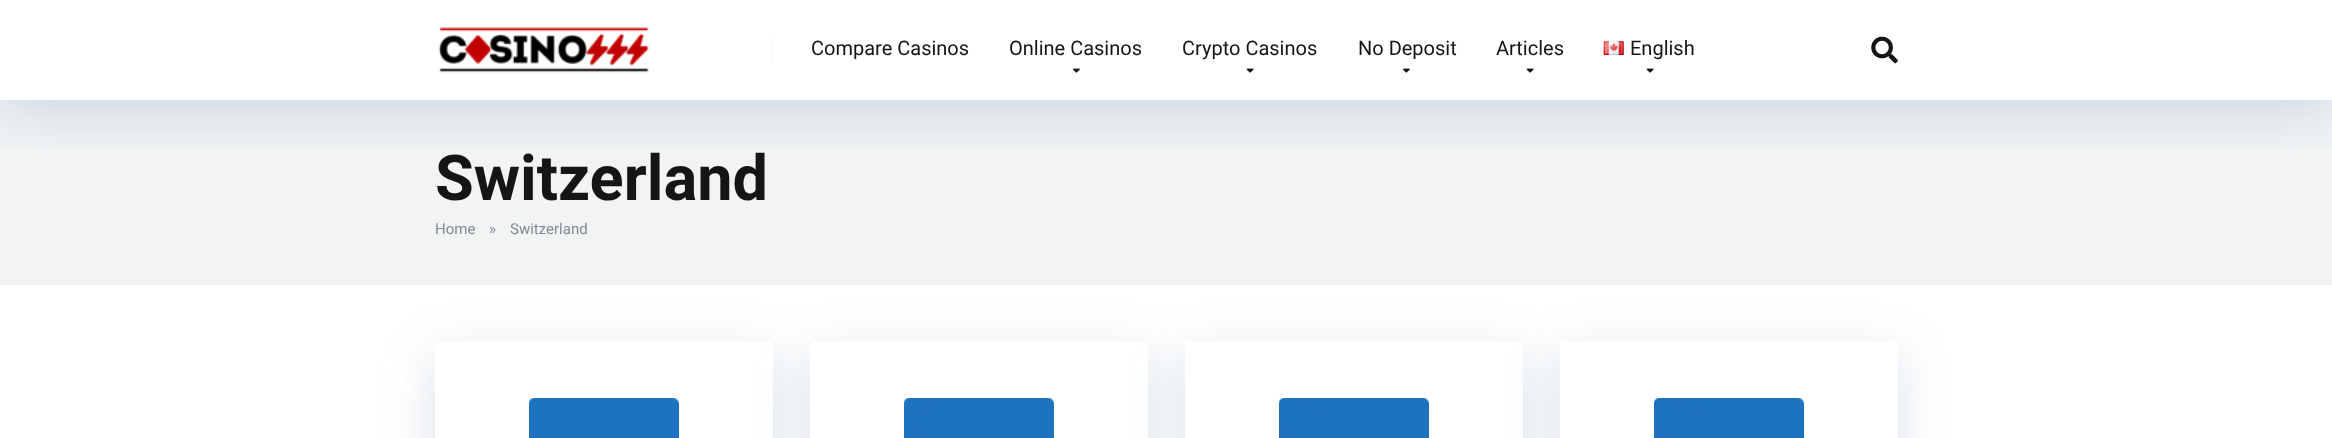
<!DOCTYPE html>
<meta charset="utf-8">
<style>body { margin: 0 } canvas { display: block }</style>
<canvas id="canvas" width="2332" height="438"></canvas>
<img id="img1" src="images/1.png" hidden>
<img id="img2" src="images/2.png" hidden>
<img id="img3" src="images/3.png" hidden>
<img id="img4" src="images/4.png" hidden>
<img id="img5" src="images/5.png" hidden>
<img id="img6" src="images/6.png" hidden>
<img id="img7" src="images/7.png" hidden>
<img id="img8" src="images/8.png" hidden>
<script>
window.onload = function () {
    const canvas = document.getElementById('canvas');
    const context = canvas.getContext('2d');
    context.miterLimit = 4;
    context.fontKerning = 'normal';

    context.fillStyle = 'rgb(255, 255, 255)';
    context.fillRect(0, 0, 2332, 438);
    context.fillStyle = 'rgb(241, 243, 244)';
    context.fillRect(0, 100, 2332, 185);
    context.save();
    context.beginPath();
    context.rect(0, 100, 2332, 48);
    context.clip();
    context.fillStyle = 'rgba(109, 141, 173, 0.25)';
    context.filter = 'blur(25px)';
    context.beginPath();
    context.rect(0, 13, 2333, 100);
    context.fill();
    context.filter = 'none';
    context.restore();
    context.drawImage(document.getElementById('img1'), 438, 27, 211, 46);
    context.fillStyle = 'rgb(245, 246, 250)';
    context.fillRect(771, 38, 1, 25);
    context.drawImage(document.getElementById('img2'), 1072, 68, 8, 5);
    context.drawImage(document.getElementById('img3'), 1246, 68, 8, 5);
    context.drawImage(document.getElementById('img2'), 1402, 68, 8, 5);
    context.drawImage(document.getElementById('img3'), 1526, 68, 8, 5);
    context.drawImage(document.getElementById('img4'), 1603, 41, 21, 14);
    context.drawImage(document.getElementById('img3'), 1646, 68, 8, 5);
    context.drawImage(document.getElementById('img5'), 1871, 36, 27, 28);
    context.fillStyle = 'rgba(109, 141, 173, 0.25)';
    context.filter = 'blur(25px)';
    context.beginPath();
    context.roundRect(435, 354, 338, 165, 6);
    context.fill();
    context.filter = 'none';
    context.fillStyle = 'rgb(255, 255, 255)';
    context.beginPath();
    context.roundRect(435, 341, 338, 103, 6);
    context.fill();
    context.drawImage(document.getElementById('img6'), 529, 398, 150, 40);
    context.fillStyle = 'rgba(109, 141, 173, 0.25)';
    context.filter = 'blur(25px)';
    context.beginPath();
    context.roundRect(810, 354, 338, 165, 6);
    context.fill();
    context.filter = 'none';
    context.fillStyle = 'rgb(255, 255, 255)';
    context.beginPath();
    context.roundRect(810, 341, 338, 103, 6);
    context.fill();
    context.drawImage(document.getElementById('img7'), 904, 398, 150, 40);
    context.fillStyle = 'rgba(109, 141, 173, 0.25)';
    context.filter = 'blur(25px)';
    context.beginPath();
    context.roundRect(1185, 354, 338, 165, 6);
    context.fill();
    context.filter = 'none';
    context.fillStyle = 'rgb(255, 255, 255)';
    context.beginPath();
    context.roundRect(1185, 341, 338, 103, 6);
    context.fill();
    context.drawImage(document.getElementById('img8'), 1279, 398, 150, 40);
    context.fillStyle = 'rgba(109, 141, 173, 0.25)';
    context.filter = 'blur(25px)';
    context.beginPath();
    context.roundRect(1560, 354, 338, 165, 6);
    context.fill();
    context.filter = 'none';
    context.fillStyle = 'rgb(255, 255, 255)';
    context.beginPath();
    context.roundRect(1560, 341, 338, 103, 6);
    context.fill();
    context.drawImage(document.getElementById('img8'), 1654, 398, 150, 40);
    context.font = '20px Roboto';
    context.fillStyle = 'rgb(21, 21, 21)';
    context.fillText('Compare Casinos', 811, 55);
    context.fillText('Online Casinos', 1009, 55);
    context.fillText('Crypto Casinos', 1182, 55);
    context.fillText('No Deposit', 1358, 55);
    context.fillText('Articles', 1496, 55);
    context.fillText('English', 1630, 55);
    context.font = 'bold 63px Roboto';
    context.fillText('Switzerland', 435, 200);
    context.font = '15px Roboto';
    context.fillStyle = 'rgb(127, 140, 141)';
    context.fillText('Home', 435, 234);
    context.fillText('»', 489, 234);
    context.fillText('Switzerland', 510, 234);
};
</script>
